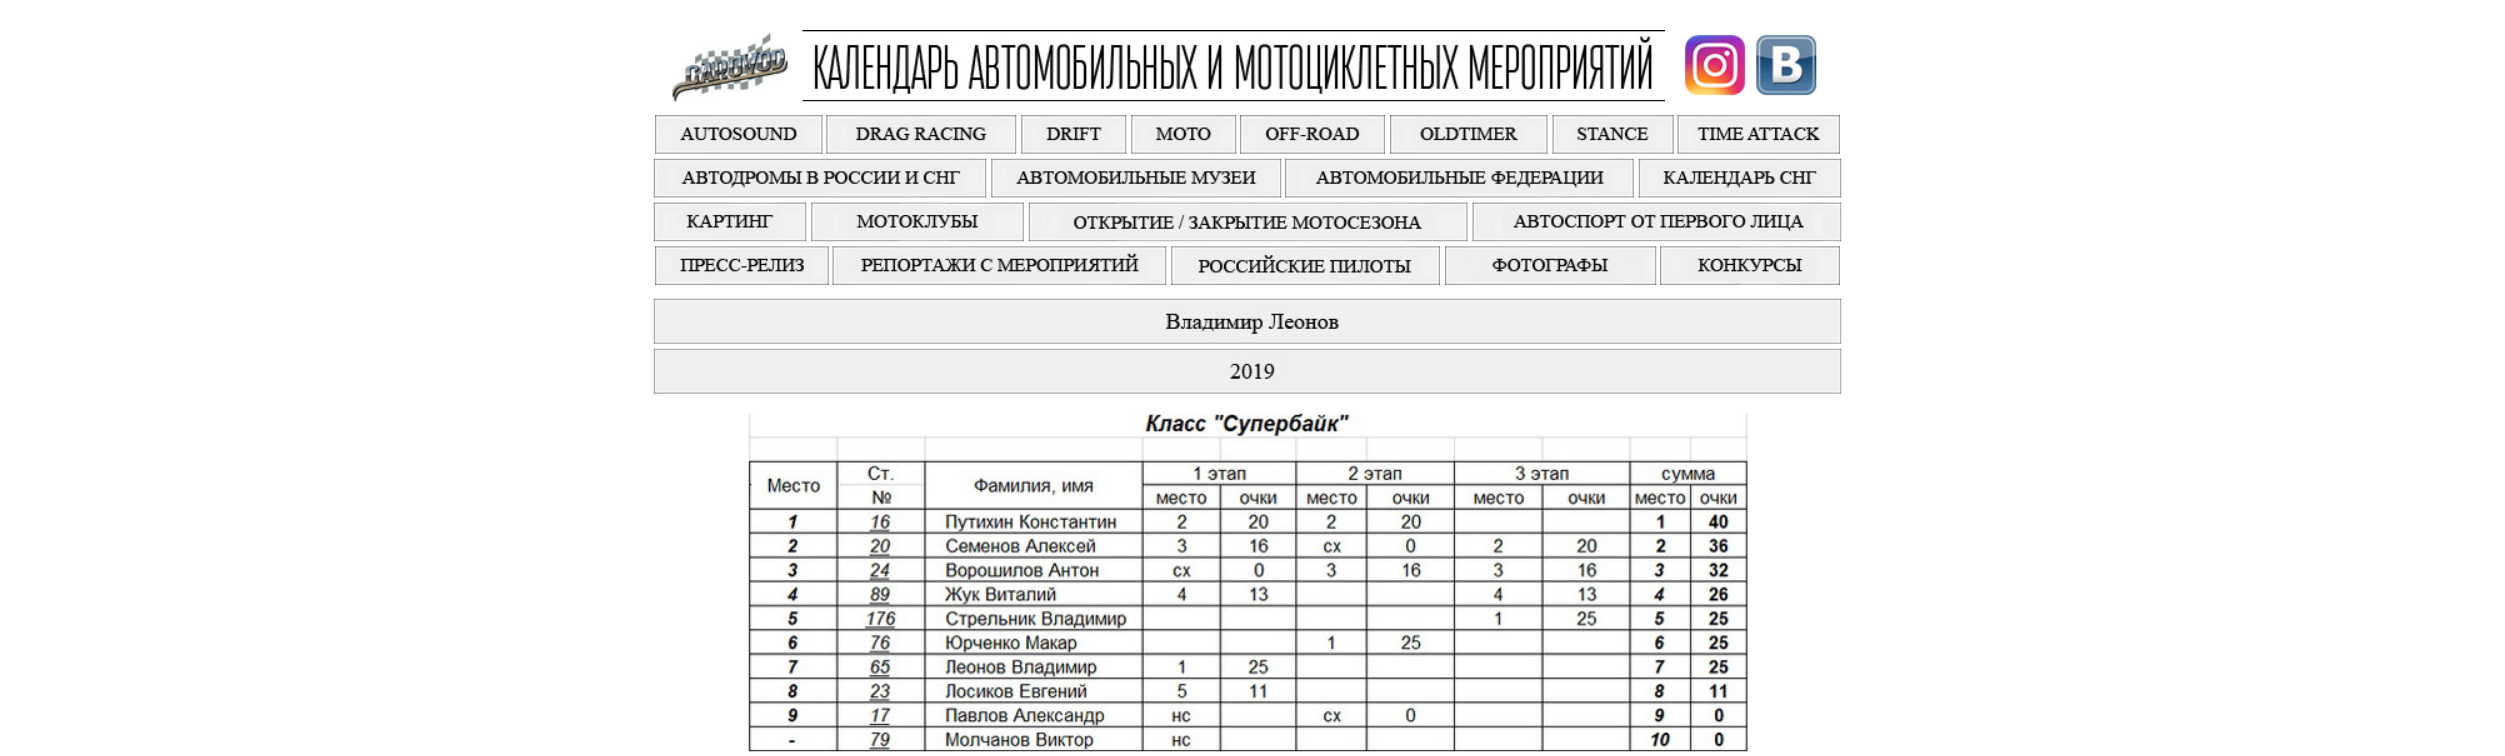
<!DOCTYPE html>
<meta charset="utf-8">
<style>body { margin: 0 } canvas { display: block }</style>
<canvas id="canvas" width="2505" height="756"></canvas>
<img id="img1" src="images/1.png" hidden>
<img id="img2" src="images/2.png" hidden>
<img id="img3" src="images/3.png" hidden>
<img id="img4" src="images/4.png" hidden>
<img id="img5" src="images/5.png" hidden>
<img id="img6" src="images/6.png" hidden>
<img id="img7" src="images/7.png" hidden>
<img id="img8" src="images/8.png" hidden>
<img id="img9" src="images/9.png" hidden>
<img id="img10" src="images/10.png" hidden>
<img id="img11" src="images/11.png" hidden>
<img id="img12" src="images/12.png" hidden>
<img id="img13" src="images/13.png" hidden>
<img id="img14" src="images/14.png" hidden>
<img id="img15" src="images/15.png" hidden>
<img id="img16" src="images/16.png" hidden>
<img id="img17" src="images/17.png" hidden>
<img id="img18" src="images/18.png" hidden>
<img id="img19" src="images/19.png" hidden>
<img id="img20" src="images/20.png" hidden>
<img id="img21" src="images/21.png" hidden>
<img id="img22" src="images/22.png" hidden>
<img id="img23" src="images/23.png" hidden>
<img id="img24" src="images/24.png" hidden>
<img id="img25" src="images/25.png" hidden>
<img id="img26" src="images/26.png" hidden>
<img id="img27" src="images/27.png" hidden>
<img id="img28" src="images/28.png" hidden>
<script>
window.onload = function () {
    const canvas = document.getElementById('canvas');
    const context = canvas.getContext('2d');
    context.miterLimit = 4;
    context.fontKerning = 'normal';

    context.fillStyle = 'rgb(255, 255, 255)';
    context.fillRect(0, 0, 2505, 756);
    context.drawImage(document.getElementById('img1'), 672, 32, 116, 70);
    context.drawImage(document.getElementById('img2'), 802, 30, 863, 72);
    context.drawImage(document.getElementById('img3'), 1684, 34, 62, 62);
    context.drawImage(document.getElementById('img4'), 1756, 34, 61, 62);
    context.drawImage(document.getElementById('img5'), 655, 115, 168, 39);
    context.drawImage(document.getElementById('img6'), 826, 115, 191, 39);
    context.drawImage(document.getElementById('img7'), 1021, 115, 106, 39);
    context.drawImage(document.getElementById('img8'), 1131, 115, 106, 39);
    context.drawImage(document.getElementById('img9'), 1240, 115, 145, 39);
    context.drawImage(document.getElementById('img10'), 1390, 115, 158, 39);
    context.drawImage(document.getElementById('img11'), 1552, 115, 122, 39);
    context.drawImage(document.getElementById('img12'), 1677, 115, 163, 39);
    context.drawImage(document.getElementById('img13'), 653, 158, 334, 40);
    context.drawImage(document.getElementById('img14'), 991, 158, 291, 40);
    context.drawImage(document.getElementById('img15'), 1285, 158, 349, 40);
    context.drawImage(document.getElementById('img16'), 1638, 158, 204, 40);
    context.drawImage(document.getElementById('img17'), 653, 202, 154, 40);
    context.drawImage(document.getElementById('img18'), 811, 202, 213, 40);
    context.drawImage(document.getElementById('img19'), 1028, 202, 440, 40);
    context.drawImage(document.getElementById('img20'), 1472, 202, 370, 40);
    context.drawImage(document.getElementById('img21'), 655, 246, 174, 39);
    context.drawImage(document.getElementById('img22'), 832, 246, 335, 39);
    context.drawImage(document.getElementById('img23'), 1171, 246, 269, 39);
    context.drawImage(document.getElementById('img24'), 1445, 246, 212, 39);
    context.drawImage(document.getElementById('img25'), 1660, 246, 180, 39);
    context.drawImage(document.getElementById('img26'), 653, 298, 1189, 46);
    context.drawImage(document.getElementById('img27'), 653, 348, 1189, 46);
    context.drawImage(document.getElementById('img28'), 748, 413, 1000, 339);
};
</script>
